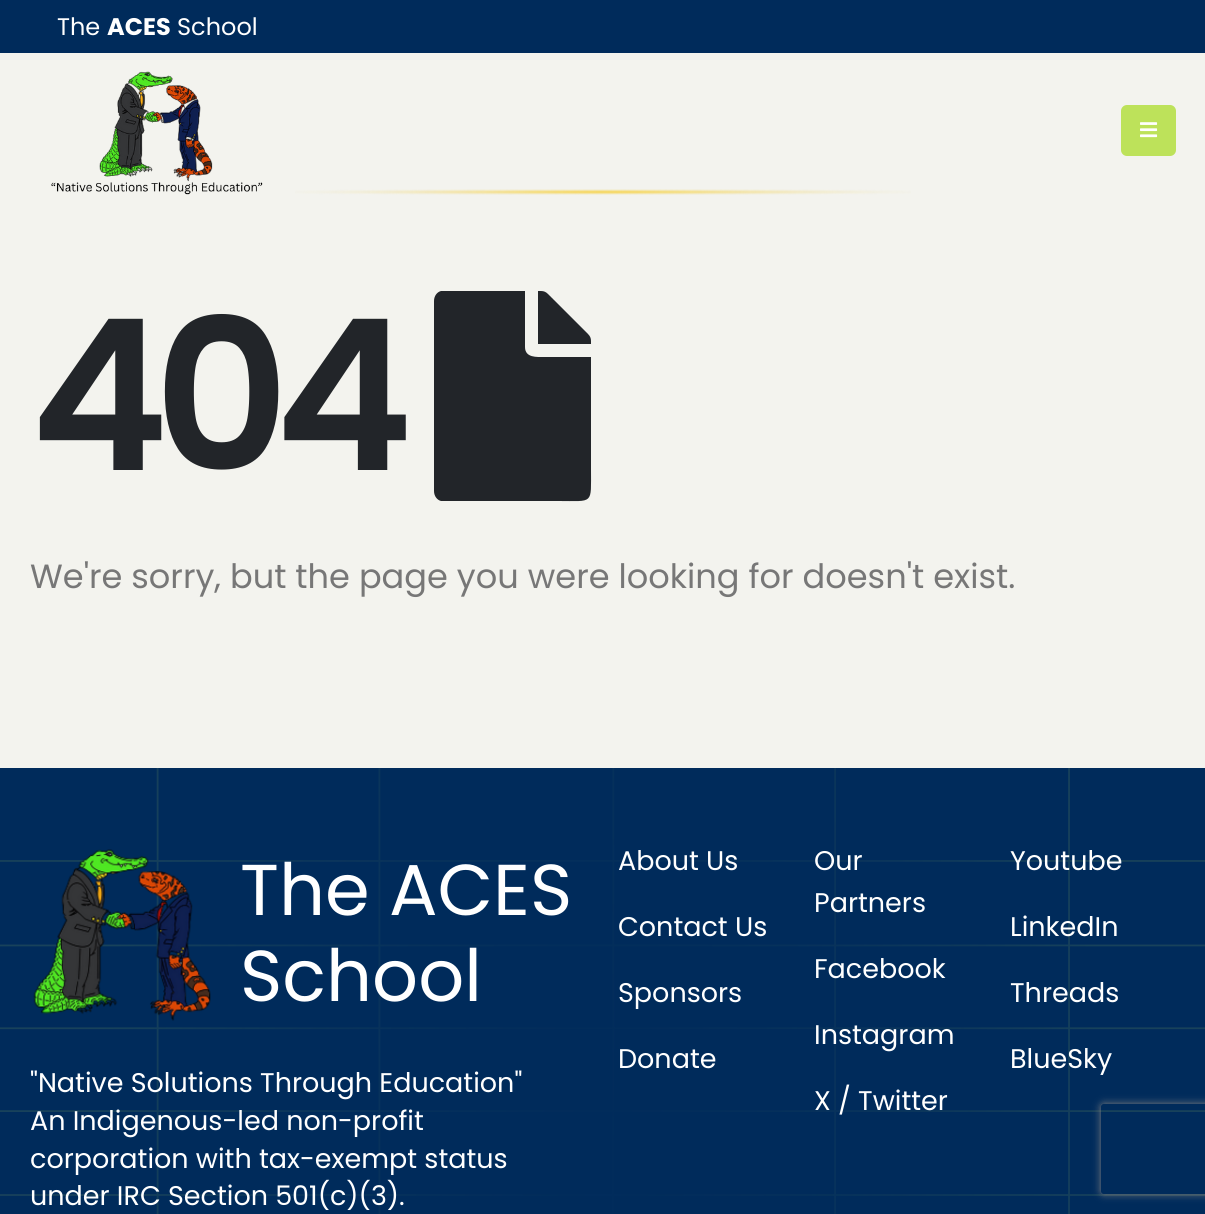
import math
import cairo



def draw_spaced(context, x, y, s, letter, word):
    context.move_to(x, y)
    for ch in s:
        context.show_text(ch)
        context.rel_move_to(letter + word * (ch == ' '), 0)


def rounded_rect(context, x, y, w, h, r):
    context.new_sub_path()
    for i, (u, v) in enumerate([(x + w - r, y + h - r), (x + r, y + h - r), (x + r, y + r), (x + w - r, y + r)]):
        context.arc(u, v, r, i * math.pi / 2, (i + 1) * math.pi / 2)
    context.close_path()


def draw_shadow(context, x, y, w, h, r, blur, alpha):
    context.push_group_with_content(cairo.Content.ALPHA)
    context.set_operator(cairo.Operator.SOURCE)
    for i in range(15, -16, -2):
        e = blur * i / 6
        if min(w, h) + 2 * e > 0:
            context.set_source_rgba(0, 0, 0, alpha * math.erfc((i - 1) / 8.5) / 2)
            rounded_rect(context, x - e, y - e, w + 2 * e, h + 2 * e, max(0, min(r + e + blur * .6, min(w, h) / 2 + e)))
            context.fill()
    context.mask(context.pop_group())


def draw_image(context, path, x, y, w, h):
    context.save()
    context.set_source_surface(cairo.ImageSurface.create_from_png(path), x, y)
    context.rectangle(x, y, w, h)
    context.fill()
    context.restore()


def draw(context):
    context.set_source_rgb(243 / 255, 243 / 255, 238 / 255)
    context.paint()
    context.set_source_rgb(0, 43 / 255, 91 / 255)
    context.rectangle(0, 0, 1205, 53)
    context.fill()
    draw_image(context, "images/1.png", 295, 189, 616, 6)
    draw_image(context, "images/2.png", 51, 71, 212, 124)
    context.set_source_rgb(189 / 255, 226 / 255, 90 / 255)
    rounded_rect(context, 1121, 105, 55, 51, 6)
    context.fill()
    draw_image(context, "images/3.png", 1140, 122, 18, 16)
    context.set_source_rgb(34 / 255, 37 / 255, 41 / 255)
    context.new_path()
    context.move_to(525, 347)
    context.line_to(525, 291)
    context.line_to(441, 291)
    context.curve_to(437, 292, 434, 296, 434, 301)
    context.line_to(434, 491)
    context.curve_to(434, 496, 437, 500, 441, 501)
    context.line_to(558, 501)
    context.curve_to(594, 501, 591, 505, 591, 469)
    context.line_to(591, 357)
    context.line_to(544, 357)
    context.curve_to(537, 357, 525, 358, 525, 347)
    context.close_path()
    context.move_to(591, 341)
    context.line_to(591, 344)
    context.line_to(538, 344)
    context.line_to(538, 291)
    context.line_to(541, 291)
    context.curve_to(544, 291, 546, 292, 548, 294)
    context.line_to(588, 334)
    context.curve_to(590, 336, 591, 338, 591, 341)
    context.close_path()
    context.fill()
    context.set_source_rgb(0, 43 / 255, 91 / 255)
    context.rectangle(0, 768, 1205, 446)
    context.fill()
    draw_image(context, "images/4.png", 0, 768, 1205, 446)
    draw_image(context, "images/5.png", 33, 849, 178, 172)
    context.save()
    context.set_fill_rule(cairo.FillRule.EVEN_ODD)
    context.new_path()
    context.move_to(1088, 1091)
    context.line_to(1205, 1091)
    context.line_to(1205, 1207)
    context.line_to(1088, 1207)
    context.close_path()
    context.move_to(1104, 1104)
    context.line_to(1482, 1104)
    context.curve_to(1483.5, 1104, 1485, 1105.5, 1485, 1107)
    context.line_to(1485, 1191)
    context.curve_to(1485, 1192.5, 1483.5, 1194, 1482, 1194)
    context.line_to(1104, 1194)
    context.curve_to(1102.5, 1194, 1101, 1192.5, 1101, 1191)
    context.line_to(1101, 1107)
    context.curve_to(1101, 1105.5, 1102.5, 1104, 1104, 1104)
    context.close_path()
    context.clip()
    context.set_source_rgb(128 / 255, 128 / 255, 128 / 255)
    draw_shadow(context, 1101, 1104, 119, 90, 3, 4, 1)
    context.restore()
    context.select_font_face("Poppins")
    context.set_font_size(24)
    context.set_source_rgb(1, 1, 1)
    context.move_to(57, 35)
    context.show_text("The")
    context.select_font_face("Poppins", cairo.FontSlant.NORMAL, cairo.FontWeight.BOLD)
    context.move_to(107, 35)
    context.show_text("ACES")
    context.select_font_face("Poppins")
    context.move_to(177, 35)
    context.show_text("School")
    context.select_font_face("Poppins SemiBold")
    context.set_font_size(210)
    context.set_source_rgb(34 / 255, 37 / 255, 41 / 255)
    draw_spaced(context, 30, 470, "404", -15, 0)
    context.select_font_face("Poppins")
    context.set_font_size(33.6)
    context.set_source_rgb(119 / 255, 119 / 255, 119 / 255)
    context.move_to(30, 588)
    context.show_text("We're sorry, but the page you were looking for doesn't exist.")
    context.set_font_size(72)
    context.set_source_rgb(1, 1, 1)
    context.move_to(240, 915)
    context.show_text("The ACES")
    context.move_to(240, 1001)
    context.show_text("School")
    context.set_font_size(27)
    context.move_to(30, 1092)
    context.show_text("\"Native Solutions Through Education\"")
    context.move_to(30, 1130)
    context.show_text("An Indigenous-led non-profit")
    context.move_to(30, 1168)
    context.show_text("corporation with tax-exempt status")
    context.move_to(30, 1205)
    context.show_text("under IRC Section 501(c)(3).")
    context.move_to(618, 870)
    context.show_text("About Us")
    context.move_to(618, 936)
    context.show_text("Contact Us")
    context.move_to(618, 1002)
    context.show_text("Sponsors")
    context.move_to(618, 1068)
    context.show_text("Donate")
    context.move_to(814, 870)
    context.show_text("Our")
    context.move_to(814, 912)
    context.show_text("Partners")
    context.move_to(814, 978)
    context.show_text("Facebook")
    context.move_to(814, 1044)
    context.show_text("Instagram")
    context.move_to(814, 1110)
    context.show_text("X / Twitter")
    context.move_to(1010, 870)
    context.show_text("Youtube")
    context.move_to(1010, 936)
    context.show_text("LinkedIn")
    context.move_to(1010, 1002)
    context.show_text("Threads")
    context.move_to(1010, 1068)
    context.show_text("BlueSky")


surface = cairo.ImageSurface(cairo.Format.RGB24, 1205, 1214)
context = cairo.Context(surface)
options = cairo.FontOptions()
options.set_hint_metrics(cairo.HintMetrics.OFF)
options.set_hint_style(cairo.HintStyle.NONE)
context.set_font_options(options)
context.set_miter_limit(4)
draw(context)
surface.write_to_png("out.png")
